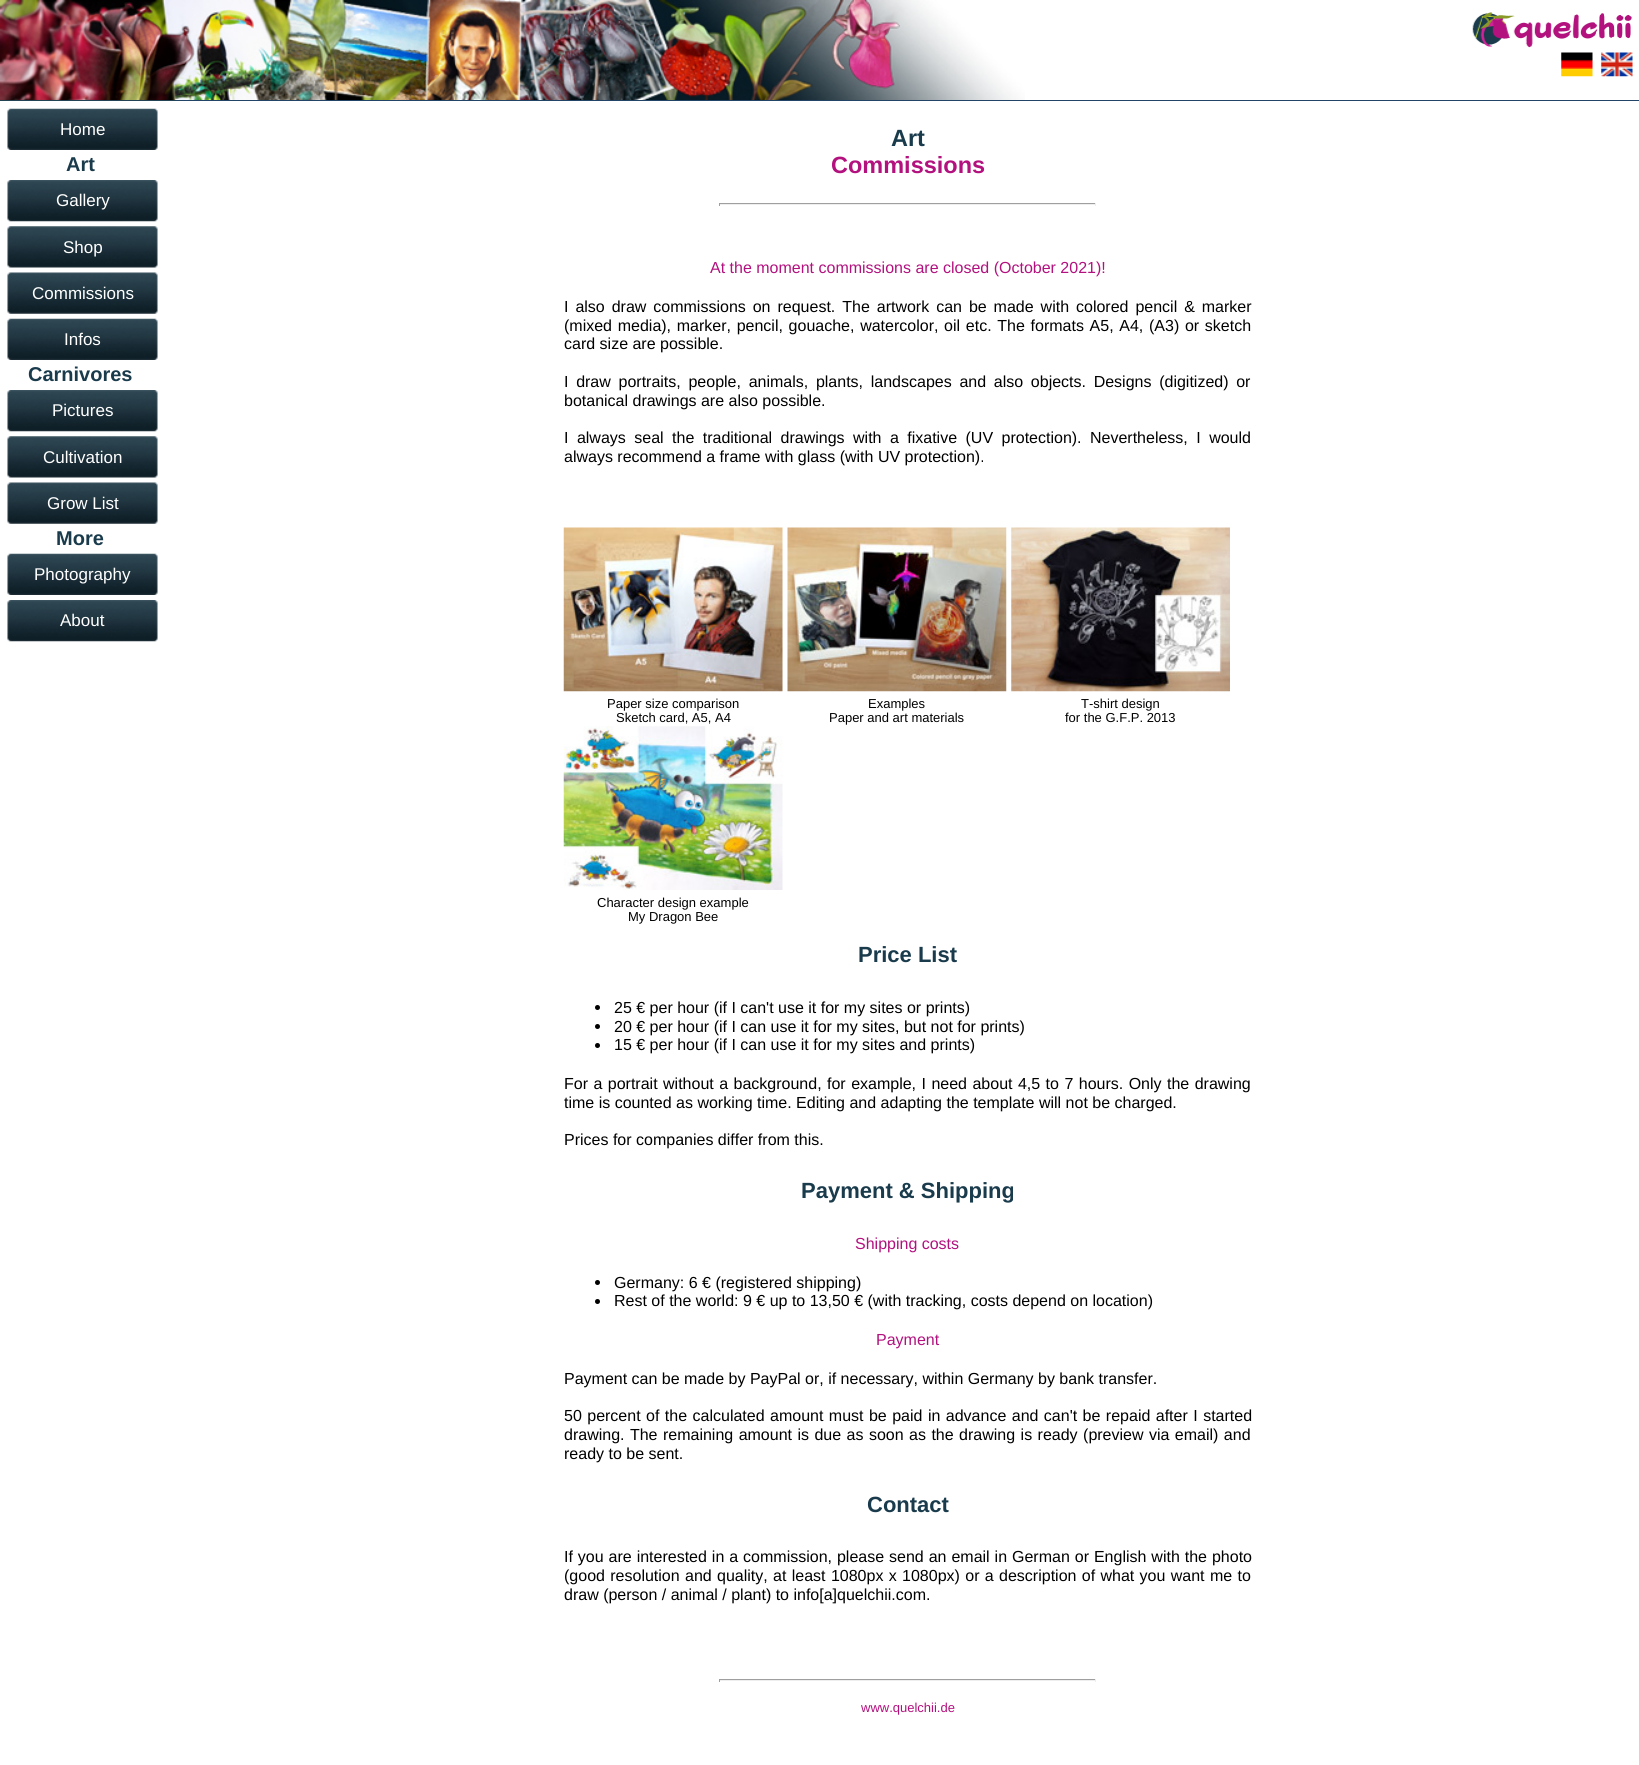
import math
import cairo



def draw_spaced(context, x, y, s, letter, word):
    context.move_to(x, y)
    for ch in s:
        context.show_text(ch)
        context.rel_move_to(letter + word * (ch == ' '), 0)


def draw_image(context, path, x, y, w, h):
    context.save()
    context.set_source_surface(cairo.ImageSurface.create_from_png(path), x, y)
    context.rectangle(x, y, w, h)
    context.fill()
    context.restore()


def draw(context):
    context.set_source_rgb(1, 1, 1)
    context.paint()
    draw_image(context, "images/1.png", 0, 0, 1025, 100)
    draw_image(context, "images/2.png", 1472, 12, 160, 36)
    draw_image(context, "images/3.png", 1561, 52, 32, 25)
    draw_image(context, "images/4.png", 1601, 52, 32, 25)
    context.set_source_rgb(34 / 255, 68 / 255, 85 / 255)
    context.rectangle(0, 100, 175, 1)
    context.fill()
    draw_image(context, "images/5.png", 7, 108, 151, 42)
    draw_image(context, "images/6.png", 7, 180, 151, 42)
    draw_image(context, "images/7.png", 7, 226, 151, 42)
    draw_image(context, "images/8.png", 7, 272, 151, 42)
    draw_image(context, "images/5.png", 7, 318, 151, 42)
    draw_image(context, "images/6.png", 7, 390, 151, 42)
    draw_image(context, "images/7.png", 7, 436, 151, 42)
    draw_image(context, "images/8.png", 7, 482, 151, 42)
    draw_image(context, "images/9.png", 7, 553, 151, 42)
    draw_image(context, "images/6.png", 7, 600, 151, 42)
    context.set_source_rgb(34 / 255, 68 / 255, 102 / 255)
    context.rectangle(175, 100, 1464, 1)
    context.fill()
    context.set_source_rgb(159 / 255, 159 / 255, 159 / 255)
    context.rectangle(719, 203, 377, 1)
    context.fill()
    context.set_source_rgb(238 / 255, 238 / 255, 238 / 255)
    context.rectangle(1095, 203, 1, 3)
    context.fill()
    context.rectangle(719, 204, 377, 1)
    context.fill()
    context.set_source_rgb(159 / 255, 159 / 255, 159 / 255)
    context.rectangle(719, 203, 1, 3)
    context.fill()
    draw_image(context, "images/10.png", 563, 527, 220, 165)
    draw_image(context, "images/11.png", 787, 527, 220, 165)
    draw_image(context, "images/12.png", 1011, 527, 219, 165)
    draw_image(context, "images/13.png", 563, 726, 220, 164)
    context.set_source_rgb(0, 0, 0)
    context.arc(597.5, 1007.5, 2.5, 0, 2 * math.pi)
    context.fill()
    context.arc(597.5, 1026.5, 2.5, 0, 2 * math.pi)
    context.fill()
    context.arc(597.5, 1045.5, 2.5, 0, 2 * math.pi)
    context.fill()
    context.arc(597.5, 1282.5, 2.5, 0, 2 * math.pi)
    context.fill()
    context.arc(597.5, 1301.5, 2.5, 0, 2 * math.pi)
    context.fill()
    context.set_source_rgb(159 / 255, 159 / 255, 159 / 255)
    context.rectangle(719, 1679, 377, 1)
    context.fill()
    context.set_source_rgb(238 / 255, 238 / 255, 238 / 255)
    context.rectangle(1095, 1679, 1, 3)
    context.fill()
    context.rectangle(719, 1680, 377, 1)
    context.fill()
    context.set_source_rgb(159 / 255, 159 / 255, 159 / 255)
    context.rectangle(719, 1679, 1, 3)
    context.fill()
    context.select_font_face("Liberation Sans")
    context.set_font_size(17)
    context.set_source_rgb(1, 1, 1)
    context.move_to(60, 135)
    context.show_text("Home")
    context.select_font_face("Liberation Sans", cairo.FontSlant.NORMAL, cairo.FontWeight.BOLD)
    context.set_font_size(20)
    context.set_source_rgb(25 / 255, 59 / 255, 76 / 255)
    context.move_to(66, 171)
    context.show_text("Art")
    context.select_font_face("Liberation Sans")
    context.set_font_size(17)
    context.set_source_rgb(1, 1, 1)
    context.move_to(56, 206)
    context.show_text("Gallery")
    context.move_to(63, 253)
    context.show_text("Shop")
    context.move_to(32, 299)
    context.show_text("Commissions")
    context.move_to(64, 345)
    context.show_text("Infos")
    context.select_font_face("Liberation Sans", cairo.FontSlant.NORMAL, cairo.FontWeight.BOLD)
    context.set_font_size(20)
    context.set_source_rgb(25 / 255, 59 / 255, 76 / 255)
    context.move_to(28, 381)
    context.show_text("Carnivores")
    context.select_font_face("Liberation Sans")
    context.set_font_size(17)
    context.set_source_rgb(1, 1, 1)
    context.move_to(52, 416)
    context.show_text("Pictures")
    context.move_to(43, 463)
    context.show_text("Cultivation")
    context.move_to(47, 509)
    context.show_text("Grow List")
    context.select_font_face("Liberation Sans", cairo.FontSlant.NORMAL, cairo.FontWeight.BOLD)
    context.set_font_size(20)
    context.set_source_rgb(25 / 255, 59 / 255, 76 / 255)
    context.move_to(56, 545)
    context.show_text("More")
    context.select_font_face("Liberation Sans")
    context.set_font_size(17)
    context.set_source_rgb(1, 1, 1)
    context.move_to(34, 580)
    context.show_text("Photography")
    context.move_to(60, 626)
    context.show_text("About")
    context.select_font_face("Liberation Sans", cairo.FontSlant.NORMAL, cairo.FontWeight.BOLD)
    context.set_font_size(23.5)
    context.set_source_rgb(25 / 255, 59 / 255, 76 / 255)
    context.move_to(891, 146)
    context.show_text("Art")
    context.set_source_rgb(178 / 255, 17 / 255, 126 / 255)
    context.move_to(831, 173)
    context.show_text("Commissions")
    context.select_font_face("Liberation Sans")
    context.set_font_size(16)
    context.move_to(710, 273)
    context.show_text("At the moment commissions are closed (October 2021)!")
    context.set_source_rgb(0, 0, 0)
    draw_spaced(context, 564, 312, "I also draw commissions on request. The artwork can be made with colored pencil & marker", 0, 2.5)
    draw_spaced(context, 564, 331, "(mixed media), marker, pencil, gouache, watercolor, oil etc. The formats A5, A4, (A3) or sketch", 0, 1.25)
    context.move_to(564, 349)
    context.show_text("card size are possible.")
    draw_spaced(context, 564, 387, "I draw portraits, people, animals, plants, landscapes and also objects. Designs (digitized) or", 0, 3.25)
    context.move_to(564, 406)
    context.show_text("botanical drawings are also possible.")
    draw_spaced(context, 564, 443, "I always seal the traditional drawings with a fixative (UV protection). Nevertheless, I would", 0, 4)
    context.move_to(564, 462)
    context.show_text("always recommend a frame with glass (with UV protection).")
    context.set_font_size(13)
    context.move_to(607, 708)
    context.show_text("Paper size comparison")
    context.move_to(616, 722)
    context.show_text("Sketch card, A5, A4")
    context.move_to(868, 708)
    context.show_text("Examples")
    context.move_to(829, 722)
    context.show_text("Paper and art materials")
    context.move_to(1081, 708)
    context.show_text("T-shirt design")
    context.move_to(1065, 722)
    context.show_text("for the G.F.P. 2013")
    context.move_to(597, 907)
    context.show_text("Character design example")
    context.move_to(628, 921)
    context.show_text("My Dragon Bee")
    context.select_font_face("Liberation Sans", cairo.FontSlant.NORMAL, cairo.FontWeight.BOLD)
    context.set_font_size(22)
    context.set_source_rgb(25 / 255, 59 / 255, 76 / 255)
    context.move_to(858, 962)
    context.show_text("Price List")
    context.select_font_face("Liberation Sans")
    context.set_font_size(16)
    context.set_source_rgb(0, 0, 0)
    context.move_to(614, 1013)
    context.show_text("25 € per hour (if I can't use it for my sites or prints)")
    context.move_to(614, 1032)
    context.show_text("20 € per hour (if I can use it for my sites, but not for prints)")
    context.move_to(614, 1050)
    context.show_text("15 € per hour (if I can use it for my sites and prints)")
    draw_spaced(context, 564, 1089, "For a portrait without a background, for example, I need about 4,5 to 7 hours. Only the drawing", 0, 1)
    context.move_to(564, 1108)
    context.show_text("time is counted as working time. Editing and adapting the template will not be charged.")
    context.move_to(564, 1145)
    context.show_text("Prices for companies differ from this.")
    context.select_font_face("Liberation Sans", cairo.FontSlant.NORMAL, cairo.FontWeight.BOLD)
    context.set_font_size(22)
    context.set_source_rgb(25 / 255, 59 / 255, 76 / 255)
    context.move_to(801, 1198)
    context.show_text("Payment & Shipping")
    context.select_font_face("Liberation Sans")
    context.set_font_size(16)
    context.set_source_rgb(178 / 255, 17 / 255, 126 / 255)
    context.move_to(855, 1249)
    context.show_text("Shipping costs")
    context.set_source_rgb(0, 0, 0)
    context.move_to(614, 1288)
    context.show_text("Germany: 6 € (registered shipping)")
    context.move_to(614, 1306)
    context.show_text("Rest of the world: 9 € up to 13,50 € (with tracking, costs depend on location)")
    context.set_source_rgb(178 / 255, 17 / 255, 126 / 255)
    context.move_to(876, 1345)
    context.show_text("Payment")
    context.set_source_rgb(0, 0, 0)
    context.move_to(564, 1384)
    context.show_text("Payment can be made by PayPal or, if necessary, within Germany by bank transfer.")
    draw_spaced(context, 564, 1421, "50 percent of the calculated amount must be paid in advance and can't be repaid after I started", 0, 1)
    draw_spaced(context, 564, 1440, "drawing. The remaining amount is due as soon as the drawing is ready (preview via email) and", 0, 1)
    context.move_to(564, 1459)
    context.show_text("ready to be sent.")
    context.select_font_face("Liberation Sans", cairo.FontSlant.NORMAL, cairo.FontWeight.BOLD)
    context.set_font_size(22)
    context.set_source_rgb(25 / 255, 59 / 255, 76 / 255)
    context.move_to(867, 1512)
    context.show_text("Contact")
    context.select_font_face("Liberation Sans")
    context.set_font_size(16)
    context.set_source_rgb(0, 0, 0)
    draw_spaced(context, 564, 1562, "If you are interested in a commission, please send an email in German or English with the photo", 0, 0.5)
    draw_spaced(context, 564, 1581, "(good resolution and quality, at least 1080px x 1080px) or a description of what you want me to", 0, 0.9)
    context.move_to(564, 1600)
    context.show_text("draw (person / animal / plant) to info[a]quelchii.com.")
    context.set_font_size(13)
    context.set_source_rgb(178 / 255, 17 / 255, 126 / 255)
    context.move_to(861, 1712)
    context.show_text("www.quelchii.de")


surface = cairo.ImageSurface(cairo.Format.RGB24, 1639, 1765)
context = cairo.Context(surface)
options = cairo.FontOptions()
options.set_hint_metrics(cairo.HintMetrics.OFF)
options.set_hint_style(cairo.HintStyle.NONE)
context.set_font_options(options)
context.set_miter_limit(4)
draw(context)
surface.write_to_png("out.png")
